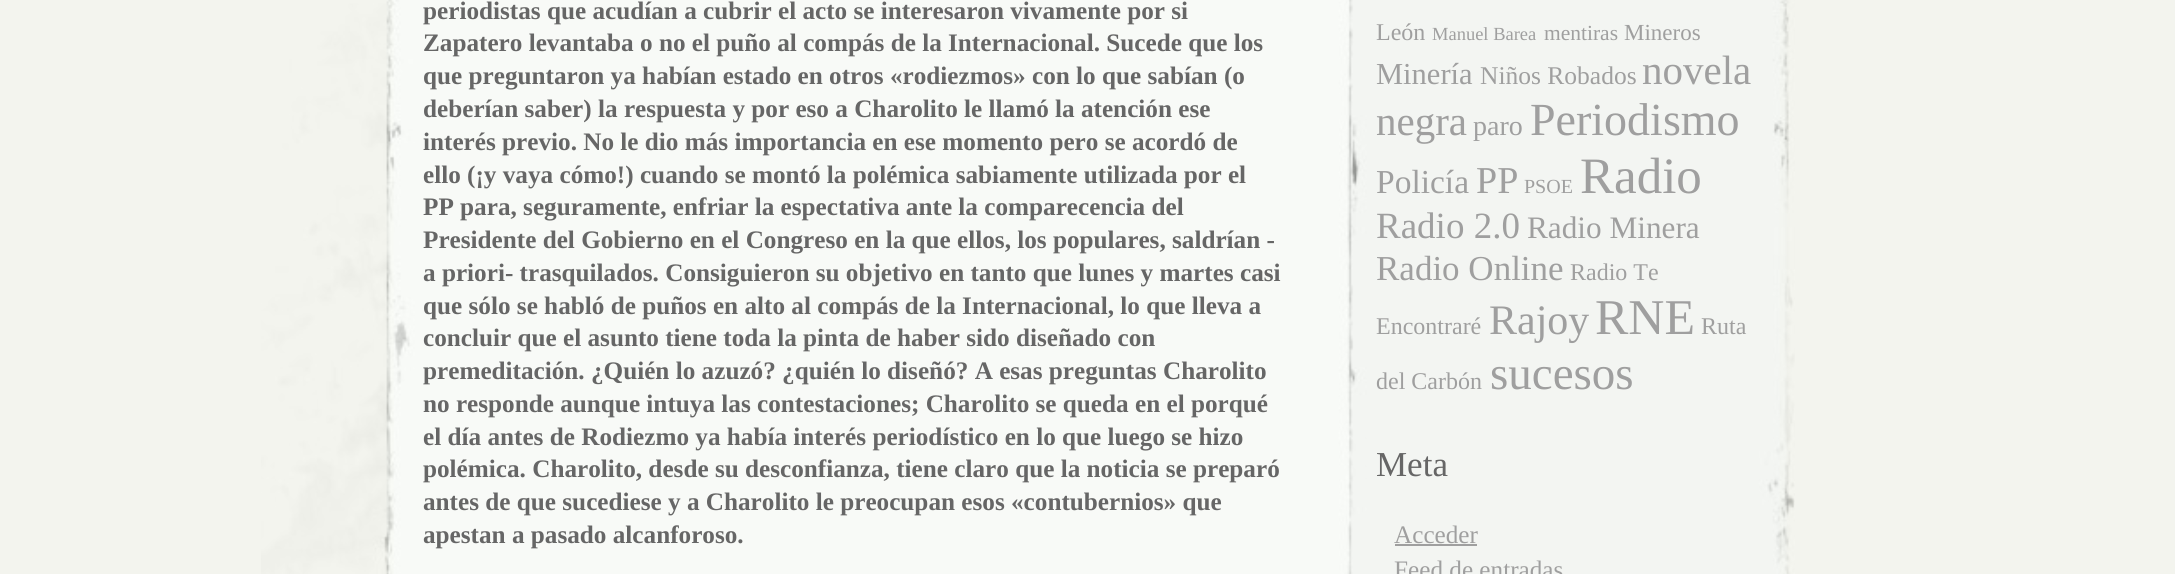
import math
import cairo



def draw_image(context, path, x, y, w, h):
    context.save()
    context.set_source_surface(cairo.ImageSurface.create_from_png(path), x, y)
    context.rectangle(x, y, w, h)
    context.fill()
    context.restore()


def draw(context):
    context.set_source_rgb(243 / 255, 244 / 255, 238 / 255)
    context.paint()
    draw_image(context, "images/1.png", 261, 0, 1534, 574)
    context.set_source_rgb(159 / 255, 159 / 255, 159 / 255)
    context.rectangle(1395, 544, 82, 2)
    context.fill()
    context.select_font_face("Liberation Serif", cairo.FontSlant.NORMAL, cairo.FontWeight.BOLD)
    context.set_font_size(25.2)
    context.set_source_rgb(102 / 255, 102 / 255, 102 / 255)
    context.move_to(423, 19)
    context.show_text("periodistas que acudían a cubrir el acto se interesaron vivamente por si")
    context.move_to(423, 51)
    context.show_text("Zapatero levantaba o no el puño al compás de la Internacional. Sucede que los")
    context.move_to(423, 84)
    context.show_text("que preguntaron ya habían estado en otros «rodiezmos» con lo que sabían (o")
    context.move_to(423, 117)
    context.show_text("deberían saber) la respuesta y por eso a Charolito le llamó la atención ese")
    context.move_to(423, 150)
    context.show_text("interés previo. No le dio más importancia en ese momento pero se acordó de")
    context.move_to(423, 183)
    context.show_text("ello (¡y vaya cómo!) cuando se montó la polémica sabiamente utilizada por el")
    context.move_to(423, 215)
    context.show_text("PP para, seguramente, enfriar la espectativa ante la comparecencia del")
    context.move_to(423, 248)
    context.show_text("Presidente del Gobierno en el Congreso en la que ellos, los populares, saldrían -")
    context.move_to(423, 281)
    context.show_text("a priori- trasquilados. Consiguieron su objetivo en tanto que lunes y martes casi")
    context.move_to(423, 314)
    context.show_text("que sólo se habló de puños en alto al compás de la Internacional, lo que lleva a")
    context.move_to(423, 346)
    context.show_text("concluir que el asunto tiene toda la pinta de haber sido diseñado con")
    context.move_to(423, 379)
    context.show_text("premeditación. ¿Quién lo azuzó? ¿quién lo diseñó? A esas preguntas Charolito")
    context.move_to(423, 412)
    context.show_text("no responde aunque intuya las contestaciones; Charolito se queda en el porqué")
    context.move_to(423, 445)
    context.show_text("el día antes de Rodiezmo ya había interés periodístico en lo que luego se hizo")
    context.move_to(423, 477)
    context.show_text("polémica. Charolito, desde su desconfianza, tiene claro que la noticia se preparó")
    context.move_to(423, 510)
    context.show_text("antes de que sucediese y a Charolito le preocupan esos «contubernios» que")
    context.move_to(423, 543)
    context.show_text("apestan a pasado alcanforoso.")
    context.select_font_face("Liberation Serif")
    context.set_font_size(24)
    context.set_source_rgb(159 / 255, 159 / 255, 159 / 255)
    context.move_to(1376, 40)
    context.show_text("León")
    context.set_font_size(18.5)
    context.move_to(1432, 40)
    context.show_text("Manuel Barea")
    context.set_font_size(21.5)
    context.move_to(1544, 40)
    context.show_text("mentiras")
    context.set_font_size(23)
    context.move_to(1624, 40)
    context.show_text("Mineros")
    context.set_font_size(30.5)
    context.move_to(1376, 84)
    context.show_text("Minería")
    context.set_font_size(25.5)
    context.move_to(1480, 84)
    context.show_text("Niños Robados")
    context.set_font_size(41)
    context.move_to(1642, 84)
    context.show_text("novela")
    context.move_to(1376, 135)
    context.show_text("negra")
    context.set_font_size(28)
    context.move_to(1473, 135)
    context.show_text("paro")
    context.set_font_size(46)
    context.move_to(1530, 135)
    context.show_text("Periodismo")
    context.set_font_size(33.5)
    context.move_to(1376, 193)
    context.show_text("Policía")
    context.set_font_size(38)
    context.move_to(1476, 193)
    context.show_text("PP")
    context.set_font_size(20)
    context.move_to(1524, 193)
    context.show_text("PSOE")
    context.set_font_size(51)
    context.move_to(1580, 193)
    context.show_text("Radio")
    context.set_font_size(37)
    context.move_to(1376, 238)
    context.show_text("Radio 2.0")
    context.set_font_size(31.25)
    context.move_to(1527, 238)
    context.show_text("Radio Minera")
    context.set_font_size(35)
    context.move_to(1376, 280)
    context.show_text("Radio Online")
    context.set_font_size(24)
    context.move_to(1570, 280)
    context.show_text("Radio Te")
    context.move_to(1376, 334)
    context.show_text("Encontraré")
    context.set_font_size(42)
    context.move_to(1489, 334)
    context.show_text("Rajoy")
    context.set_font_size(50)
    context.move_to(1595, 334)
    context.show_text("RNE")
    context.set_font_size(24)
    context.move_to(1701, 334)
    context.show_text("Ruta")
    context.move_to(1376, 389)
    context.show_text("del Carbón")
    context.set_font_size(47)
    context.move_to(1490, 389)
    context.show_text("sucesos")
    context.set_font_size(35)
    context.set_source_rgb(102 / 255, 102 / 255, 102 / 255)
    context.move_to(1376, 476)
    context.show_text("Meta")
    context.set_font_size(25.2)
    context.set_source_rgb(159 / 255, 159 / 255, 159 / 255)
    context.move_to(1394, 543)
    context.show_text("Acceder")
    context.move_to(1394, 578)
    context.show_text("Feed de entradas")


surface = cairo.ImageSurface(cairo.Format.RGB24, 2175, 574)
context = cairo.Context(surface)
options = cairo.FontOptions()
options.set_hint_metrics(cairo.HintMetrics.OFF)
options.set_hint_style(cairo.HintStyle.NONE)
context.set_font_options(options)
context.set_miter_limit(4)
draw(context)
surface.write_to_png("out.png")
